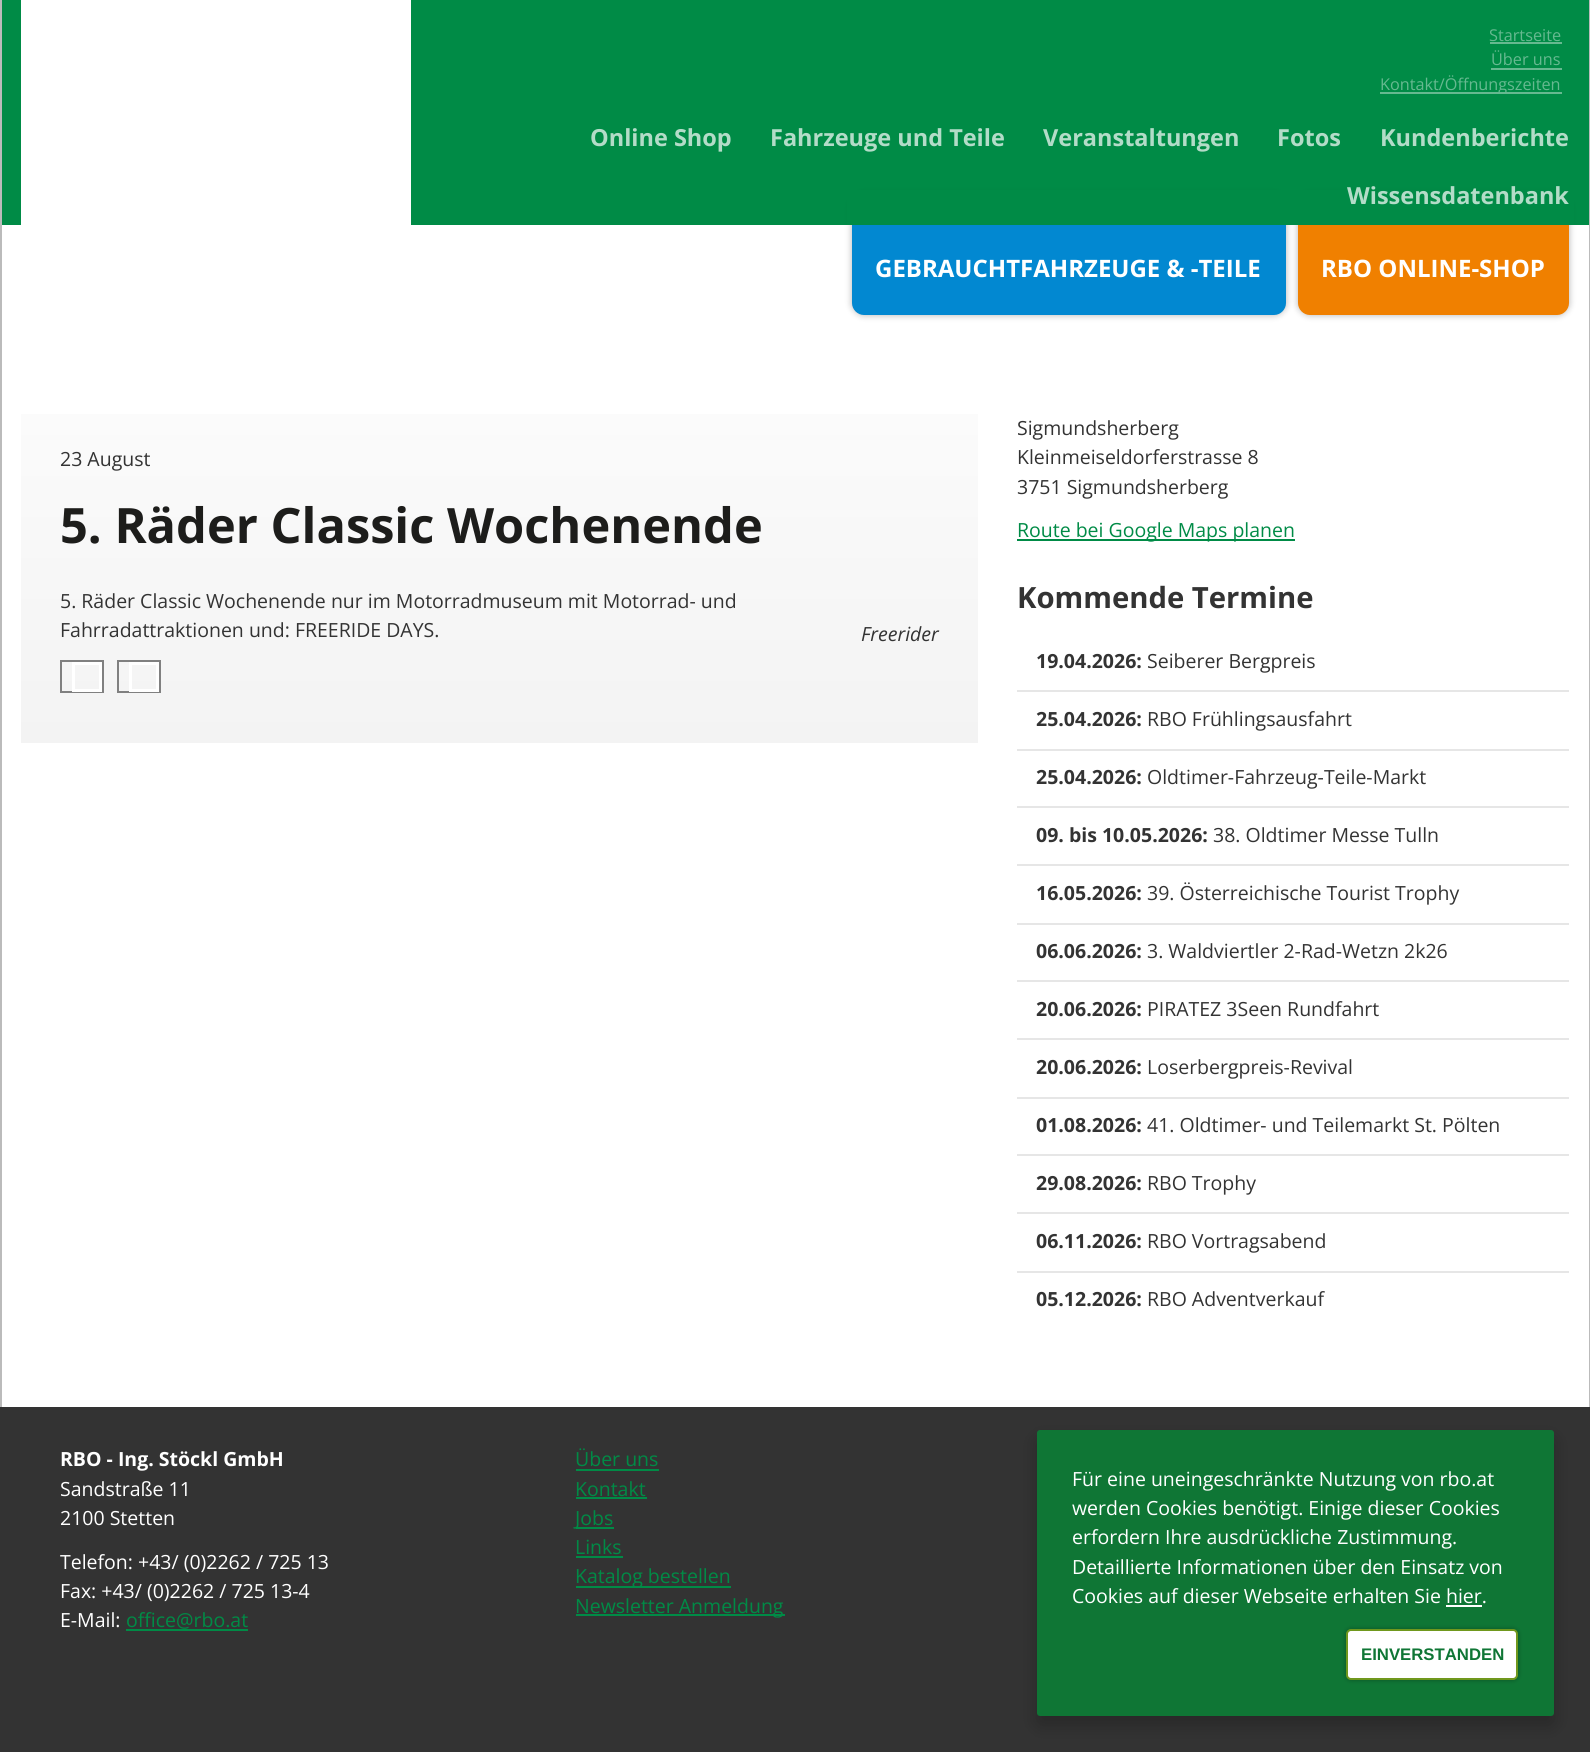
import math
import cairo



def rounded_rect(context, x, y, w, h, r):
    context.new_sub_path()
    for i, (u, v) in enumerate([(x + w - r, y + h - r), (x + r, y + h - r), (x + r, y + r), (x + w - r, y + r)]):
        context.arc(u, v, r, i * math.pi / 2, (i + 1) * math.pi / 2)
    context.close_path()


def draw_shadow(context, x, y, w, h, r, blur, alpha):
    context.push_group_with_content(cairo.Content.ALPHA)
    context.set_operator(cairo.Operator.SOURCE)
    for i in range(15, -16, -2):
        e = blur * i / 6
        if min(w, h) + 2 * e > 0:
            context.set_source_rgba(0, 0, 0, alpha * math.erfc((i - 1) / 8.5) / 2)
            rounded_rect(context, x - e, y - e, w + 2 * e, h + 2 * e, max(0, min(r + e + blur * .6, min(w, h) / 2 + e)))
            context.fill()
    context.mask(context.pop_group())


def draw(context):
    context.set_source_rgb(51 / 255, 51 / 255, 51 / 255)
    context.paint()
    context.set_source_rgb(1, 1, 1)
    context.rectangle(2, 225, 1587, 1182)
    context.fill()
    context.set_source_rgb(187 / 255, 187 / 255, 187 / 255)
    context.rectangle(1589, 0, 1, 1407)
    context.fill()
    context.rectangle(0, 0, 2, 1407)
    context.fill()
    context.set_source_rgb(0, 139 / 255, 70 / 255)
    context.rectangle(2, 0, 1587, 225)
    context.fill()
    context.set_source_rgb(1, 1, 1)
    context.rectangle(21, 0, 390, 225)
    context.fill()
    context.set_source_rgb(102 / 255, 185 / 255, 144 / 255)
    context.rectangle(1490, 42, 72, 2)
    context.fill()
    context.rectangle(1491, 68, 71, 2)
    context.fill()
    context.rectangle(1380, 92, 182, 2)
    context.fill()
    context.set_source_rgb(0, 0, 0)
    draw_shadow(context, 852, 195, 434, 120, 12, 3.5, 0.3)
    context.set_source_rgb(2 / 255, 136 / 255, 209 / 255)
    context.new_path()
    context.move_to(852, 195)
    context.line_to(1286, 195)
    context.line_to(1286, 303)
    context.curve_to(1286, 309.5, 1280.5, 315, 1274, 315)
    context.line_to(864, 315)
    context.curve_to(857.5, 315, 852, 309.5, 852, 303)
    context.close_path()
    context.fill()
    context.set_source_rgb(0, 0, 0)
    draw_shadow(context, 1298, 195, 271, 120, 12, 3.5, 0.3)
    context.set_source_rgb(240 / 255, 128 / 255, 0)
    context.new_path()
    context.move_to(1298, 195)
    context.line_to(1569, 195)
    context.line_to(1569, 303)
    context.curve_to(1569, 309.5, 1563.5, 315, 1557, 315)
    context.line_to(1310, 315)
    context.curve_to(1303.5, 315, 1298, 309.5, 1298, 303)
    context.close_path()
    context.fill()
    context.set_source_rgb(0, 139 / 255, 70 / 255)
    context.rectangle(847, 190, 727, 35)
    context.fill()
    gradient = cairo.LinearGradient(500, 414, 500, 743)
    gradient.add_color_stop_rgba(0, 251 / 255, 251 / 255, 251 / 255, 1)
    gradient.add_color_stop_rgba(1, 243 / 255, 243 / 255, 243 / 255, 1)
    context.set_source(gradient)
    context.rectangle(21, 414, 957, 329)
    context.fill()
    context.rectangle(61, 661, 42, 31)
    context.set_source_rgb(128 / 255, 128 / 255, 128 / 255)
    context.stroke()
    context.rectangle(73.5, 663.5, 27, 27)
    context.set_source_rgb(1, 1, 1)
    context.set_line_width(3)
    context.stroke()
    context.rectangle(118, 661, 42, 31)
    context.set_source_rgb(128 / 255, 128 / 255, 128 / 255)
    context.set_line_width(2)
    context.stroke()
    context.rectangle(130.5, 663.5, 27, 27)
    context.set_source_rgb(1, 1, 1)
    context.set_line_width(3)
    context.stroke()
    context.set_source_rgb(0, 139 / 255, 70 / 255)
    context.rectangle(1017, 539, 278, 2)
    context.fill()
    context.set_source_rgb(230 / 255, 230 / 255, 230 / 255)
    context.rectangle(1017, 690, 552, 2)
    context.fill()
    context.rectangle(1017, 749, 552, 2)
    context.fill()
    context.rectangle(1017, 806, 552, 2)
    context.fill()
    context.rectangle(1017, 864, 552, 2)
    context.fill()
    context.rectangle(1017, 923, 552, 2)
    context.fill()
    context.rectangle(1017, 980, 552, 2)
    context.fill()
    context.rectangle(1017, 1038, 552, 2)
    context.fill()
    context.rectangle(1017, 1097, 552, 2)
    context.fill()
    context.rectangle(1017, 1154, 552, 2)
    context.fill()
    context.rectangle(1017, 1212, 552, 2)
    context.fill()
    context.rectangle(1017, 1271, 552, 2)
    context.fill()
    context.set_source_rgb(0, 139 / 255, 70 / 255)
    context.rectangle(126, 1629, 122, 2)
    context.fill()
    context.rectangle(576, 1469, 83, 2)
    context.fill()
    context.rectangle(576, 1497, 71, 2)
    context.fill()
    context.rectangle(576, 1527, 38, 2)
    context.fill()
    context.rectangle(576, 1556, 47, 2)
    context.fill()
    context.rectangle(576, 1586, 155, 2)
    context.fill()
    context.rectangle(576, 1614, 209, 2)
    context.fill()
    context.set_source_rgb(0, 0, 0)
    draw_shadow(context, 1037, 1439, 517, 286, 3, 9, 0.23)
    context.set_source_rgb(15 / 255, 118 / 255, 53 / 255)
    rounded_rect(context, 1037, 1430, 517, 286, 3)
    context.fill()
    context.set_source_rgb(1, 1, 1)
    context.rectangle(1446, 1605, 36, 2)
    context.fill()
    context.set_source_rgb(0, 0, 0)
    draw_shadow(context, 1346, 1629, 172, 51, 5, 2.5, 0.3)
    context.set_source_rgb(1, 1, 1)
    rounded_rect(context, 1347, 1630, 170, 49, 4)
    context.fill_preserve()
    context.set_source_rgb(112 / 255, 152 / 255, 29 / 255)
    context.set_line_width(2)
    context.stroke()
    context.select_font_face("Open Sans")
    context.set_font_size(16.25)
    context.set_source_rgb(102 / 255, 185 / 255, 144 / 255)
    context.move_to(1489, 41)
    context.show_text("Startseite")
    context.move_to(1491, 65)
    context.show_text("Über uns")
    context.move_to(1380, 90)
    context.show_text("Kontakt/Öffnungszeiten")
    context.select_font_face("Open Sans", cairo.FontSlant.NORMAL, cairo.FontWeight.BOLD)
    context.set_font_size(23.5)
    context.set_source_rgb(179 / 255, 220 / 255, 200 / 255)
    context.move_to(590, 146)
    context.show_text("Online Shop")
    context.move_to(770, 146)
    context.show_text("Fahrzeuge und Teile")
    context.move_to(1043, 146)
    context.show_text("Veranstaltungen")
    context.move_to(1277, 146)
    context.show_text("Fotos")
    context.move_to(1380, 146)
    context.show_text("Kundenberichte")
    context.move_to(1347, 204)
    context.show_text("Wissensdatenbank")
    context.set_font_size(24)
    context.set_source_rgb(1, 1, 1)
    context.move_to(875, 277)
    context.show_text("GEBRAUCHTFAHRZEUGE & -TEILE")
    context.move_to(1321, 277)
    context.show_text("RBO ONLINE-SHOP")
    context.select_font_face("Open Sans")
    context.set_font_size(19.5)
    context.set_source_rgb(51 / 255, 51 / 255, 51 / 255)
    context.move_to(60, 466)
    context.show_text("23 August")
    context.select_font_face("Open Sans", cairo.FontSlant.NORMAL, cairo.FontWeight.BOLD)
    context.set_font_size(48.75)
    context.set_source_rgb(29 / 255, 29 / 255, 27 / 255)
    context.move_to(60, 543)
    context.show_text("5. Räder Classic Wochenende")
    context.select_font_face("Open Sans")
    context.set_font_size(19.5)
    context.set_source_rgb(51 / 255, 51 / 255, 51 / 255)
    context.move_to(60, 608)
    context.show_text("5. Räder Classic Wochenende nur im Motorradmuseum mit Motorrad- und")
    context.move_to(60, 637)
    context.show_text("Fahrradattraktionen und: FREERIDE DAYS.")
    context.select_font_face("Open Sans", cairo.FontSlant.ITALIC)
    context.move_to(861, 641)
    context.show_text("Freerider")
    context.select_font_face("Open Sans")
    context.move_to(1017, 435)
    context.show_text("Sigmundsherberg")
    context.move_to(1017, 464)
    context.show_text("Kleinmeiseldorferstrasse 8")
    context.move_to(1017, 494)
    context.show_text("3751 Sigmundsherberg")
    context.set_source_rgb(0, 139 / 255, 70 / 255)
    context.move_to(1017, 537)
    context.show_text("Route bei Google Maps planen")
    context.select_font_face("Open Sans", cairo.FontSlant.NORMAL, cairo.FontWeight.BOLD)
    context.set_font_size(29.25)
    context.set_source_rgb(51 / 255, 51 / 255, 51 / 255)
    context.move_to(1017, 608)
    context.show_text("Kommende Termine")
    context.set_font_size(19.5)
    context.move_to(1036, 668)
    context.show_text("19.04.2026:")
    context.select_font_face("Open Sans")
    context.move_to(1147, 668)
    context.show_text("Seiberer Bergpreis")
    context.select_font_face("Open Sans", cairo.FontSlant.NORMAL, cairo.FontWeight.BOLD)
    context.move_to(1036, 726)
    context.show_text("25.04.2026:")
    context.select_font_face("Open Sans")
    context.move_to(1147, 726)
    context.show_text("RBO Frühlingsausfahrt")
    context.select_font_face("Open Sans", cairo.FontSlant.NORMAL, cairo.FontWeight.BOLD)
    context.move_to(1036, 784)
    context.show_text("25.04.2026:")
    context.select_font_face("Open Sans")
    context.move_to(1147, 784)
    context.show_text("Oldtimer-Fahrzeug-Teile-Markt")
    context.select_font_face("Open Sans", cairo.FontSlant.NORMAL, cairo.FontWeight.BOLD)
    context.move_to(1036, 842)
    context.show_text("09. bis 10.05.2026:")
    context.select_font_face("Open Sans")
    context.move_to(1213, 842)
    context.show_text("38. Oldtimer Messe Tulln")
    context.select_font_face("Open Sans", cairo.FontSlant.NORMAL, cairo.FontWeight.BOLD)
    context.move_to(1036, 900)
    context.show_text("16.05.2026:")
    context.select_font_face("Open Sans")
    context.move_to(1147, 900)
    context.show_text("39. Österreichische Tourist Trophy")
    context.select_font_face("Open Sans", cairo.FontSlant.NORMAL, cairo.FontWeight.BOLD)
    context.move_to(1036, 958)
    context.show_text("06.06.2026:")
    context.select_font_face("Open Sans")
    context.move_to(1147, 958)
    context.show_text("3. Waldviertler 2-Rad-Wetzn 2k26")
    context.select_font_face("Open Sans", cairo.FontSlant.NORMAL, cairo.FontWeight.BOLD)
    context.move_to(1036, 1016)
    context.show_text("20.06.2026:")
    context.select_font_face("Open Sans")
    context.move_to(1147, 1016)
    context.show_text("PIRATEZ 3Seen Rundfahrt")
    context.select_font_face("Open Sans", cairo.FontSlant.NORMAL, cairo.FontWeight.BOLD)
    context.move_to(1036, 1074)
    context.show_text("20.06.2026:")
    context.select_font_face("Open Sans")
    context.move_to(1147, 1074)
    context.show_text("Loserbergpreis-Revival")
    context.select_font_face("Open Sans", cairo.FontSlant.NORMAL, cairo.FontWeight.BOLD)
    context.move_to(1036, 1132)
    context.show_text("01.08.2026:")
    context.select_font_face("Open Sans")
    context.move_to(1147, 1132)
    context.show_text("41. Oldtimer- und Teilemarkt St. Pölten")
    context.select_font_face("Open Sans", cairo.FontSlant.NORMAL, cairo.FontWeight.BOLD)
    context.move_to(1036, 1190)
    context.show_text("29.08.2026:")
    context.select_font_face("Open Sans")
    context.move_to(1147, 1190)
    context.show_text("RBO Trophy")
    context.select_font_face("Open Sans", cairo.FontSlant.NORMAL, cairo.FontWeight.BOLD)
    context.move_to(1036, 1248)
    context.show_text("06.11.2026:")
    context.select_font_face("Open Sans")
    context.move_to(1147, 1248)
    context.show_text("RBO Vortragsabend")
    context.select_font_face("Open Sans", cairo.FontSlant.NORMAL, cairo.FontWeight.BOLD)
    context.move_to(1036, 1306)
    context.show_text("05.12.2026:")
    context.select_font_face("Open Sans")
    context.move_to(1147, 1306)
    context.show_text("RBO Adventverkauf")
    context.select_font_face("Open Sans", cairo.FontSlant.NORMAL, cairo.FontWeight.BOLD)
    context.set_source_rgb(1, 1, 1)
    context.move_to(60, 1466)
    context.show_text("RBO - Ing. Stöckl GmbH")
    context.select_font_face("Open Sans")
    context.move_to(60, 1496)
    context.show_text("Sandstraße 11")
    context.move_to(60, 1525)
    context.show_text("2100 Stetten")
    context.move_to(60, 1569)
    context.show_text("Telefon: +43/ (0)2262 / 725 13")
    context.move_to(60, 1598)
    context.show_text("Fax: +43/ (0)2262 / 725 13-4")
    context.move_to(60, 1627)
    context.show_text("E-Mail:")
    context.set_source_rgb(0, 139 / 255, 70 / 255)
    context.move_to(126, 1627)
    context.show_text("office@rbo.at")
    context.move_to(575, 1466)
    context.show_text("Über uns")
    context.move_to(575, 1496)
    context.show_text("Kontakt")
    context.move_to(575, 1525)
    context.show_text("Jobs")
    context.move_to(575, 1554)
    context.show_text("Links")
    context.move_to(575, 1583)
    context.show_text("Katalog bestellen")
    context.move_to(575, 1613)
    context.show_text("Newsletter Anmeldung")
    context.set_source_rgb(1, 1, 1)
    context.move_to(1072, 1486)
    context.show_text("Für eine uneingeschränkte Nutzung von rbo.at")
    context.move_to(1072, 1515)
    context.show_text("werden Cookies benötigt. Einige dieser Cookies")
    context.move_to(1072, 1544)
    context.show_text("erfordern Ihre ausdrückliche Zustimmung.")
    context.move_to(1072, 1574)
    context.show_text("Detaillierte Informationen über den Einsatz von")
    context.move_to(1072, 1603)
    context.show_text("Cookies auf dieser Webseite erhalten Sie hier.")
    context.select_font_face("Liberation Sans", cairo.FontSlant.NORMAL, cairo.FontWeight.BOLD)
    context.set_font_size(16.75)
    context.set_source_rgb(15 / 255, 118 / 255, 53 / 255)
    context.move_to(1361, 1660)
    context.show_text("EINVERSTANDEN")


surface = cairo.ImageSurface(cairo.Format.RGB24, 1590, 1752)
context = cairo.Context(surface)
options = cairo.FontOptions()
options.set_hint_metrics(cairo.HintMetrics.OFF)
options.set_hint_style(cairo.HintStyle.NONE)
context.set_font_options(options)
context.set_miter_limit(4)
draw(context)
surface.write_to_png("out.png")
